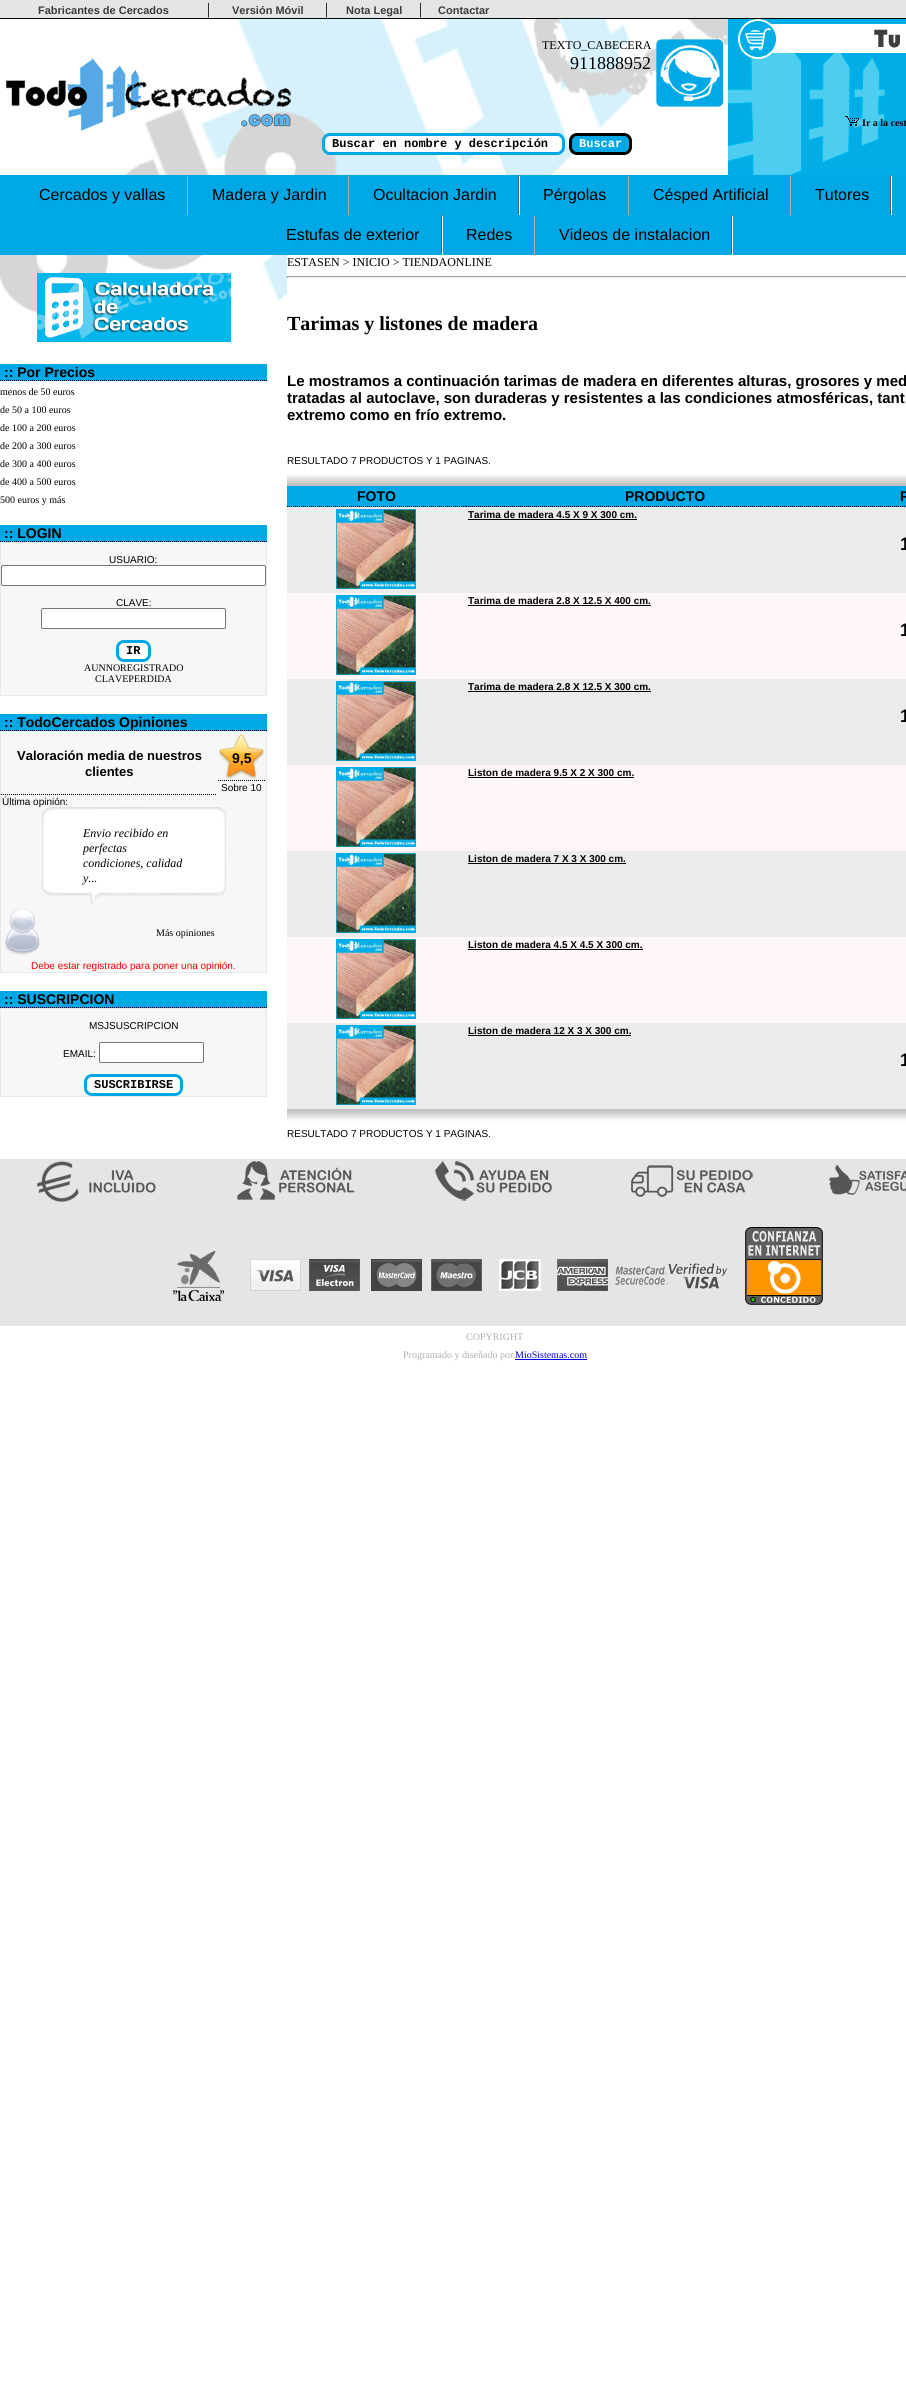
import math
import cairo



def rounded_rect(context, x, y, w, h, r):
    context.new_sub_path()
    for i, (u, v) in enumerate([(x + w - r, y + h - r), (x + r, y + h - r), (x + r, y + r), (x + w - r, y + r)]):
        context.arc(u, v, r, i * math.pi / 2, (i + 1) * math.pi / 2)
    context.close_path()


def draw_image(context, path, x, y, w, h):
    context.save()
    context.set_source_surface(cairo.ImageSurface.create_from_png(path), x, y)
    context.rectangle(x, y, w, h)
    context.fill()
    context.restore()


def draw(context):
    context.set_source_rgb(1, 1, 1)
    context.paint()
    context.set_source_rgb(0, 0, 0)
    context.rectangle(0, 18, 906, 1)
    context.fill()
    context.set_source_rgb(229 / 255, 229 / 255, 229 / 255)
    context.rectangle(0, 0, 906, 18)
    context.fill()
    draw_image(context, "images/1.png", 0, 19, 728, 294)
    draw_image(context, "images/2.png", 6, 58, 285, 74)
    draw_image(context, "images/3.png", 656, 39, 68, 68)
    context.set_source_rgb(1, 1, 1)
    rounded_rect(context, 323.5, 134.5, 240, 19, 6.5)
    context.fill_preserve()
    context.set_source_rgb(0, 168 / 255, 229 / 255)
    context.set_line_width(3)
    context.stroke()
    rounded_rect(context, 570.5, 134.5, 60, 19, 6.5)
    context.fill_preserve()
    context.set_source_rgb(0, 0, 0)
    context.stroke()
    draw_image(context, "images/4.png", 728, 19, 178, 156)
    draw_image(context, "images/5.png", 845, 116, 14, 10)
    context.set_source_rgb(0, 168 / 255, 230 / 255)
    context.rectangle(0, 175, 906, 80)
    context.fill()
    draw_image(context, "images/6.png", 187, 175, 1, 40)
    draw_image(context, "images/6.png", 348, 175, 1, 40)
    draw_image(context, "images/7.png", 518, 175, 2, 40)
    draw_image(context, "images/6.png", 628, 175, 1, 40)
    draw_image(context, "images/6.png", 790, 175, 1, 40)
    draw_image(context, "images/7.png", 890, 175, 2, 40)
    draw_image(context, "images/7.png", 441, 215, 2, 40)
    draw_image(context, "images/6.png", 534, 215, 1, 40)
    draw_image(context, "images/7.png", 731, 215, 2, 40)
    draw_image(context, "images/8.png", 37, 273, 194, 69)
    context.rectangle(0, 364, 267, 17)
    context.fill()
    context.new_path()
    context.move_to(0, 380.5)
    context.line_to(267, 380.5)
    context.set_source_rgb(0, 0, 0)
    context.set_line_width(1)
    context.set_dash([1, 1])
    context.stroke()
    context.set_source_rgb(0, 168 / 255, 230 / 255)
    context.rectangle(0, 525, 267, 17)
    context.fill()
    context.new_path()
    context.move_to(0, 541.5)
    context.line_to(267, 541.5)
    context.set_source_rgb(0, 0, 0)
    context.stroke()
    context.set_source_rgb(247 / 255, 247 / 255, 247 / 255)
    context.rectangle(0.5, 542.5, 266, 153)
    context.fill_preserve()
    context.set_source_rgb(233 / 255, 233 / 255, 233 / 255)
    context.set_dash([])
    context.stroke()
    context.set_source_rgb(1, 1, 1)
    rounded_rect(context, 1.5, 565.5, 264, 20, 1.5)
    context.fill_preserve()
    context.set_source_rgb(118 / 255, 118 / 255, 118 / 255)
    context.stroke()
    context.set_source_rgb(1, 1, 1)
    rounded_rect(context, 41.5, 608.5, 184, 20, 1.5)
    context.fill_preserve()
    context.set_source_rgb(118 / 255, 118 / 255, 118 / 255)
    context.stroke()
    context.set_source_rgb(1, 1, 1)
    rounded_rect(context, 117.5, 641.5, 32, 19, 6.5)
    context.fill_preserve()
    context.set_source_rgb(0, 168 / 255, 229 / 255)
    context.set_line_width(3)
    context.stroke()
    context.set_source_rgb(0, 168 / 255, 230 / 255)
    context.rectangle(0, 714, 267, 17)
    context.fill()
    context.new_path()
    context.move_to(0, 730.5)
    context.line_to(267, 730.5)
    context.set_source_rgb(0, 0, 0)
    context.set_line_width(1)
    context.set_dash([1, 1])
    context.stroke()
    context.set_source_rgb(247 / 255, 247 / 255, 247 / 255)
    context.rectangle(0.5, 731.5, 266, 241)
    context.fill_preserve()
    context.set_source_rgb(233 / 255, 233 / 255, 233 / 255)
    context.set_dash([])
    context.stroke()
    context.new_path()
    context.move_to(1, 794.5)
    context.line_to(217, 794.5)
    context.set_source_rgb(0, 0, 0)
    context.set_dash([1, 1])
    context.stroke()
    context.new_path()
    context.move_to(218, 780.5)
    context.line_to(265, 780.5)
    context.stroke()
    draw_image(context, "images/9.png", 219, 734, 45, 45)
    draw_image(context, "images/10.png", 42, 807, 184, 98)
    draw_image(context, "images/11.png", 5, 908, 35, 47)
    context.set_source_rgb(0, 168 / 255, 230 / 255)
    context.rectangle(0, 991, 267, 17)
    context.fill()
    context.new_path()
    context.move_to(0, 1007.5)
    context.line_to(267, 1007.5)
    context.set_source_rgb(0, 0, 0)
    context.stroke()
    context.set_source_rgb(247 / 255, 247 / 255, 247 / 255)
    context.rectangle(0.5, 1008.5, 266, 88)
    context.fill_preserve()
    context.set_source_rgb(233 / 255, 233 / 255, 233 / 255)
    context.set_dash([])
    context.stroke()
    context.set_source_rgb(1, 1, 1)
    rounded_rect(context, 99.5, 1042.5, 104, 20, 1.5)
    context.fill_preserve()
    context.set_source_rgb(118 / 255, 118 / 255, 118 / 255)
    context.stroke()
    context.set_source_rgb(1, 1, 1)
    rounded_rect(context, 85.5, 1075.5, 96, 19, 6.5)
    context.fill_preserve()
    context.set_source_rgb(0, 168 / 255, 229 / 255)
    context.set_line_width(3)
    context.stroke()
    context.set_source_rgb(1, 1, 1)
    context.rectangle(287, 255, 182, 58)
    context.fill()
    context.set_source_rgb(159 / 255, 159 / 255, 159 / 255)
    context.rectangle(287, 276, 619, 1)
    context.fill()
    context.set_source_rgb(238 / 255, 238 / 255, 238 / 255)
    context.rectangle(287, 277, 619, 1)
    context.fill()
    context.set_source_rgb(159 / 255, 159 / 255, 159 / 255)
    context.rectangle(287, 276, 1, 2)
    context.fill()
    draw_image(context, "images/12.png", 287, 474, 619, 12)
    context.set_source_rgb(0, 168 / 255, 230 / 255)
    context.rectangle(287, 486, 619, 21)
    context.fill()
    context.new_path()
    context.move_to(287, 506.5)
    context.line_to(466, 506.5)
    context.set_source_rgb(0, 0, 0)
    context.set_line_width(1)
    context.set_dash([1, 1])
    context.stroke()
    context.new_path()
    context.move_to(466, 506.5)
    context.line_to(864, 506.5)
    context.stroke()
    context.new_path()
    context.move_to(864, 506.5)
    context.line_to(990, 506.5)
    context.stroke()
    context.set_source_rgb(235 / 255, 235 / 255, 235 / 255)
    context.rectangle(287, 507, 619, 86)
    context.fill()
    draw_image(context, "images/13.png", 336, 509, 80, 80)
    context.set_source_rgb(0, 0, 0)
    context.rectangle(468, 519, 169, 1)
    context.fill()
    context.set_source_rgb(1, 246 / 255, 251 / 255)
    context.rectangle(287, 593, 619, 86)
    context.fill()
    draw_image(context, "images/13.png", 336, 595, 80, 80)
    context.set_source_rgb(0, 0, 0)
    context.rectangle(468, 605, 183, 1)
    context.fill()
    context.set_source_rgb(235 / 255, 235 / 255, 235 / 255)
    context.rectangle(287, 679, 619, 86)
    context.fill()
    draw_image(context, "images/13.png", 336, 681, 80, 80)
    context.set_source_rgb(0, 0, 0)
    context.rectangle(468, 691, 183, 1)
    context.fill()
    context.set_source_rgb(1, 246 / 255, 251 / 255)
    context.rectangle(287, 765, 619, 86)
    context.fill()
    draw_image(context, "images/13.png", 336, 767, 80, 80)
    context.set_source_rgb(0, 0, 0)
    context.rectangle(468, 777, 166, 1)
    context.fill()
    context.set_source_rgb(235 / 255, 235 / 255, 235 / 255)
    context.rectangle(287, 851, 619, 86)
    context.fill()
    draw_image(context, "images/13.png", 336, 853, 80, 80)
    context.set_source_rgb(0, 0, 0)
    context.rectangle(468, 863, 158, 1)
    context.fill()
    context.set_source_rgb(1, 246 / 255, 251 / 255)
    context.rectangle(287, 937, 619, 86)
    context.fill()
    draw_image(context, "images/13.png", 336, 939, 80, 80)
    context.set_source_rgb(0, 0, 0)
    context.rectangle(468, 949, 175, 1)
    context.fill()
    context.set_source_rgb(235 / 255, 235 / 255, 235 / 255)
    context.rectangle(287, 1023, 619, 86)
    context.fill()
    draw_image(context, "images/13.png", 336, 1025, 80, 80)
    context.set_source_rgb(0, 0, 0)
    context.rectangle(468, 1035, 163, 1)
    context.fill()
    draw_image(context, "images/14.png", 287, 1109, 619, 12)
    context.set_source_rgb(229 / 255, 229 / 255, 229 / 255)
    context.rectangle(0, 1159, 906, 167)
    context.fill()
    draw_image(context, "images/15.png", 36, 1160, 120, 42)
    draw_image(context, "images/16.png", 237, 1161, 118, 39)
    draw_image(context, "images/17.png", 435, 1161, 117, 40)
    draw_image(context, "images/18.png", 631, 1165, 122, 32)
    draw_image(context, "images/19.png", 829, 1165, 77, 30)
    draw_image(context, "images/20.png", 173, 1251, 555, 50)
    draw_image(context, "images/21.png", 745, 1227, 78, 78)
    context.set_source_rgb(0, 0, 238 / 255)
    context.rectangle(515, 1359, 72, 1)
    context.fill()
    context.select_font_face("Liberation Sans", cairo.FontSlant.NORMAL, cairo.FontWeight.BOLD)
    context.set_font_size(11)
    context.set_source_rgb(59 / 255, 59 / 255, 59 / 255)
    context.move_to(38, 14)
    context.show_text("Fabricantes de Cercados")
    context.select_font_face("Liberation Serif")
    context.set_font_size(16)
    context.set_source_rgb(0, 0, 0)
    context.move_to(207, 14)
    context.show_text("|")
    context.select_font_face("Liberation Sans", cairo.FontSlant.NORMAL, cairo.FontWeight.BOLD)
    context.set_font_size(11)
    context.set_source_rgb(59 / 255, 59 / 255, 59 / 255)
    context.move_to(232, 14)
    context.show_text("Versión Móvil")
    context.select_font_face("Liberation Serif")
    context.set_font_size(16)
    context.set_source_rgb(0, 0, 0)
    context.move_to(325, 14)
    context.show_text("|")
    context.select_font_face("Liberation Sans", cairo.FontSlant.NORMAL, cairo.FontWeight.BOLD)
    context.set_font_size(11)
    context.set_source_rgb(59 / 255, 59 / 255, 59 / 255)
    context.move_to(346, 14)
    context.show_text("Nota Legal")
    context.select_font_face("Liberation Serif")
    context.set_font_size(16)
    context.set_source_rgb(0, 0, 0)
    context.move_to(419, 14)
    context.show_text("|")
    context.select_font_face("Liberation Sans", cairo.FontSlant.NORMAL, cairo.FontWeight.BOLD)
    context.set_font_size(11)
    context.set_source_rgb(59 / 255, 59 / 255, 59 / 255)
    context.move_to(438, 14)
    context.show_text("Contactar")
    context.select_font_face("Liberation Serif")
    context.set_font_size(12)
    context.set_source_rgb(0, 0, 0)
    context.move_to(542, 49)
    context.show_text("TEXTO_CABECERA")
    context.set_font_size(18)
    context.move_to(570, 69)
    context.show_text("911888952")
    context.select_font_face("Liberation Mono", cairo.FontSlant.NORMAL, cairo.FontWeight.BOLD)
    context.set_font_size(12)
    context.move_to(332, 147)
    context.show_text("Buscar en nombre y descripción")
    context.set_source_rgb(1, 1, 1)
    context.move_to(579, 147)
    context.show_text("Buscar")
    context.select_font_face("Liberation Serif", cairo.FontSlant.NORMAL, cairo.FontWeight.BOLD)
    context.set_font_size(10)
    context.set_source_rgb(0, 0, 0)
    context.move_to(862, 126)
    context.show_text("Ir a la cest")
    context.select_font_face("Liberation Sans")
    context.set_font_size(16)
    context.move_to(39, 200)
    context.show_text("Cercados y vallas")
    context.move_to(212, 200)
    context.show_text("Madera y Jardin")
    context.move_to(373, 200)
    context.show_text("Ocultacion Jardin")
    context.move_to(543, 200)
    context.show_text("Pérgolas")
    context.move_to(653, 200)
    context.show_text("Césped Artificial")
    context.move_to(815, 200)
    context.show_text("Tutores")
    context.move_to(286, 240)
    context.show_text("Estufas de exterior")
    context.move_to(466, 240)
    context.show_text("Redes")
    context.move_to(559, 240)
    context.show_text("Videos de instalacion")
    context.select_font_face("Liberation Sans", cairo.FontSlant.NORMAL, cairo.FontWeight.BOLD)
    context.set_font_size(14)
    context.move_to(4, 377)
    context.show_text(":: Por Precios")
    context.select_font_face("Liberation Serif")
    context.set_font_size(10)
    context.move_to(0, 395)
    context.show_text("menos de 50 euros")
    context.move_to(0, 413)
    context.show_text("de 50 a 100 euros")
    context.move_to(0, 431)
    context.show_text("de 100 a 200 euros")
    context.move_to(0, 449)
    context.show_text("de 200 a 300 euros")
    context.move_to(0, 467)
    context.show_text("de 300 a 400 euros")
    context.move_to(0, 485)
    context.show_text("de 400 a 500 euros")
    context.move_to(0, 503)
    context.show_text("500 euros y más")
    context.select_font_face("Liberation Sans", cairo.FontSlant.NORMAL, cairo.FontWeight.BOLD)
    context.set_font_size(14)
    context.move_to(4, 538)
    context.show_text(":: LOGIN")
    context.select_font_face("Liberation Sans")
    context.set_font_size(10)
    context.move_to(109, 563)
    context.show_text("USUARIO:")
    context.move_to(116, 606)
    context.show_text("CLAVE:")
    context.select_font_face("Liberation Mono", cairo.FontSlant.NORMAL, cairo.FontWeight.BOLD)
    context.set_font_size(12)
    context.move_to(126, 654)
    context.show_text("IR")
    context.select_font_face("Liberation Serif")
    context.set_font_size(10)
    context.move_to(84, 671)
    context.show_text("AUNNOREGISTRADO")
    context.move_to(95, 682)
    context.show_text("CLAVEPERDIDA")
    context.select_font_face("Liberation Sans", cairo.FontSlant.NORMAL, cairo.FontWeight.BOLD)
    context.set_font_size(14)
    context.move_to(4, 727)
    context.show_text(":: TodoCercados Opiniones")
    context.set_font_size(13)
    context.move_to(17, 760)
    context.show_text("Valoración media de nuestros")
    context.move_to(85, 776)
    context.show_text("clientes")
    context.set_font_size(14)
    context.move_to(232, 763)
    context.show_text("9,5")
    context.select_font_face("Liberation Sans")
    context.set_font_size(10)
    context.move_to(221, 791)
    context.show_text("Sobre 10")
    context.move_to(2, 805)
    context.show_text("Última opinión:")
    context.select_font_face("Liberation Serif", cairo.FontSlant.ITALIC)
    context.set_font_size(12)
    context.move_to(83, 837)
    context.show_text("Envio recibido en")
    context.move_to(83, 852)
    context.show_text("perfectas")
    context.move_to(83, 867)
    context.show_text("condiciones, calidad")
    context.move_to(83, 882)
    context.show_text("y...")
    context.select_font_face("Liberation Serif")
    context.set_font_size(10)
    context.move_to(156, 936)
    context.show_text("Más opiniones")
    context.select_font_face("Liberation Sans")
    context.set_source_rgb(1, 0, 0)
    context.move_to(31, 969)
    context.show_text("Debe estar registrado para poner una opinión.")
    context.select_font_face("Liberation Sans", cairo.FontSlant.NORMAL, cairo.FontWeight.BOLD)
    context.set_font_size(14)
    context.set_source_rgb(0, 0, 0)
    context.move_to(4, 1004)
    context.show_text(":: SUSCRIPCION")
    context.select_font_face("Liberation Sans")
    context.set_font_size(10)
    context.move_to(89, 1029)
    context.show_text("MSJSUSCRIPCION")
    context.move_to(63, 1057)
    context.show_text("EMAIL:")
    context.select_font_face("Liberation Mono", cairo.FontSlant.NORMAL, cairo.FontWeight.BOLD)
    context.set_font_size(12)
    context.move_to(94, 1088)
    context.show_text("SUSCRIBIRSE")
    context.select_font_face("Liberation Serif")
    context.move_to(287, 266)
    context.show_text("ESTASEN > INICIO > TIENDAONLINE")
    context.select_font_face("Liberation Serif", cairo.FontSlant.NORMAL, cairo.FontWeight.BOLD)
    context.set_font_size(20)
    context.move_to(287, 330)
    context.show_text("Tarimas y listones de madera")
    context.select_font_face("Liberation Sans", cairo.FontSlant.NORMAL, cairo.FontWeight.BOLD)
    context.set_font_size(15)
    context.move_to(287, 386)
    context.show_text("Le mostramos a continuación tarimas de madera en diferentes alturas, grosores y med")
    context.move_to(287, 403)
    context.show_text("tratadas al autoclave, son duraderas y resistentes a las condiciones atmosféricas, tant")
    context.move_to(287, 420)
    context.show_text("extremo como en frío extremo.")
    context.select_font_face("Liberation Sans")
    context.set_font_size(10)
    context.move_to(287, 464)
    context.show_text("RESULTADO 7 PRODUCTOS Y 1 PAGINAS.")
    context.select_font_face("Liberation Sans", cairo.FontSlant.NORMAL, cairo.FontWeight.BOLD)
    context.set_font_size(14)
    context.move_to(357, 501)
    context.show_text("FOTO")
    context.move_to(625, 501)
    context.show_text("PRODUCTO")
    context.move_to(900, 501)
    context.show_text("P")
    context.set_font_size(10)
    context.move_to(468, 518)
    context.show_text("Tarima de madera 4.5 X 9 X 300 cm.")
    context.set_font_size(18)
    context.move_to(900, 550)
    context.show_text("1")
    context.set_font_size(10)
    context.move_to(468, 604)
    context.show_text("Tarima de madera 2.8 X 12.5 X 400 cm.")
    context.set_font_size(18)
    context.move_to(900, 636)
    context.show_text("1")
    context.set_font_size(10)
    context.move_to(468, 690)
    context.show_text("Tarima de madera 2.8 X 12.5 X 300 cm.")
    context.set_font_size(18)
    context.move_to(900, 722)
    context.show_text("1")
    context.set_font_size(10)
    context.move_to(468, 776)
    context.show_text("Liston de madera 9.5 X 2 X 300 cm.")
    context.move_to(468, 862)
    context.show_text("Liston de madera 7 X 3 X 300 cm.")
    context.move_to(468, 948)
    context.show_text("Liston de madera 4.5 X 4.5 X 300 cm.")
    context.move_to(468, 1034)
    context.show_text("Liston de madera 12 X 3 X 300 cm.")
    context.set_font_size(18)
    context.move_to(900, 1066)
    context.show_text("1")
    context.select_font_face("Liberation Sans")
    context.set_font_size(10)
    context.move_to(287, 1137)
    context.show_text("RESULTADO 7 PRODUCTOS Y 1 PAGINAS.")
    context.select_font_face("Liberation Serif")
    context.set_source_rgb(176 / 255, 176 / 255, 176 / 255)
    context.move_to(466, 1340)
    context.show_text("COPYRIGHT")
    context.move_to(403, 1358)
    context.show_text("Programado y diseñado por")
    context.set_source_rgb(0, 0, 238 / 255)
    context.move_to(515, 1358)
    context.show_text("MioSistemas.com")


surface = cairo.ImageSurface(cairo.Format.RGB24, 906, 2405)
context = cairo.Context(surface)
options = cairo.FontOptions()
options.set_hint_metrics(cairo.HintMetrics.OFF)
options.set_hint_style(cairo.HintStyle.NONE)
context.set_font_options(options)
context.set_miter_limit(4)
draw(context)
surface.write_to_png("out.png")
